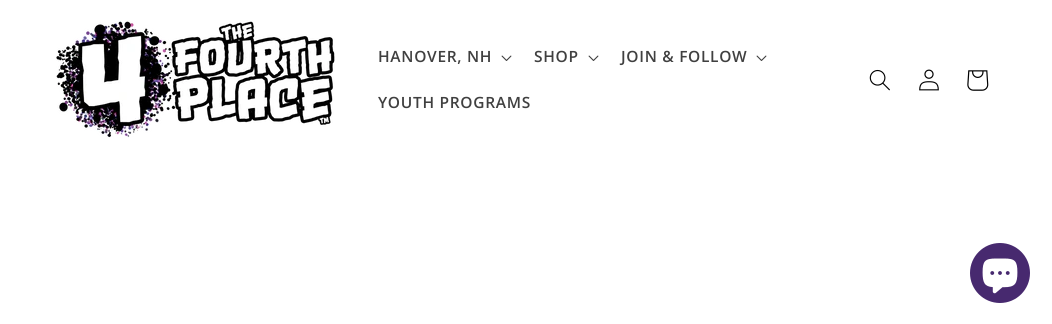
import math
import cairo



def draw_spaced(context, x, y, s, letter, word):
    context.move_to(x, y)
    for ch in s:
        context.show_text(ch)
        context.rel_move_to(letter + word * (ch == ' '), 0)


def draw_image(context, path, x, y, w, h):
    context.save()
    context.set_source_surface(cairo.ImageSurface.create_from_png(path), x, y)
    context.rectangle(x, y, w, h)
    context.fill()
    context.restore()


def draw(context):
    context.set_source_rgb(1, 1, 1)
    context.paint()
    draw_image(context, "images/1.png", 56, 20, 279, 118)
    draw_image(context, "images/2.png", 501, 55, 11, 6)
    draw_image(context, "images/2.png", 588, 55, 11, 6)
    draw_image(context, "images/2.png", 756, 55, 11, 6)
    draw_image(context, "images/3.png", 869, 69, 21, 22)
    draw_image(context, "images/4.png", 919, 69, 20, 22)
    draw_image(context, "images/5.png", 967, 70, 22, 21)
    context.set_source_rgb(71 / 255, 41 / 255, 111 / 255)
    context.arc(1000, 273, 30, 0, 2 * math.pi)
    context.fill()
    draw_image(context, "images/6.png", 982, 258, 36, 36)
    context.select_font_face("Open Sans SemiBold")
    context.set_font_size(15.5)
    context.set_source_rgb(64 / 255, 64 / 255, 64 / 255)
    draw_spaced(context, 378, 62, "HANOVER, NH", 0.7, 0)
    draw_spaced(context, 534, 62, "SHOP", 0.7, 0)
    draw_spaced(context, 621, 62, "JOIN & FOLLOW", 0.7, 0)
    draw_spaced(context, 378, 108, "YOUTH PROGRAMS", 0.7, 0)


surface = cairo.ImageSurface(cairo.Format.RGB24, 1052, 324)
context = cairo.Context(surface)
options = cairo.FontOptions()
options.set_hint_metrics(cairo.HintMetrics.OFF)
options.set_hint_style(cairo.HintStyle.NONE)
context.set_font_options(options)
context.set_miter_limit(4)
draw(context)
surface.write_to_png("out.png")
